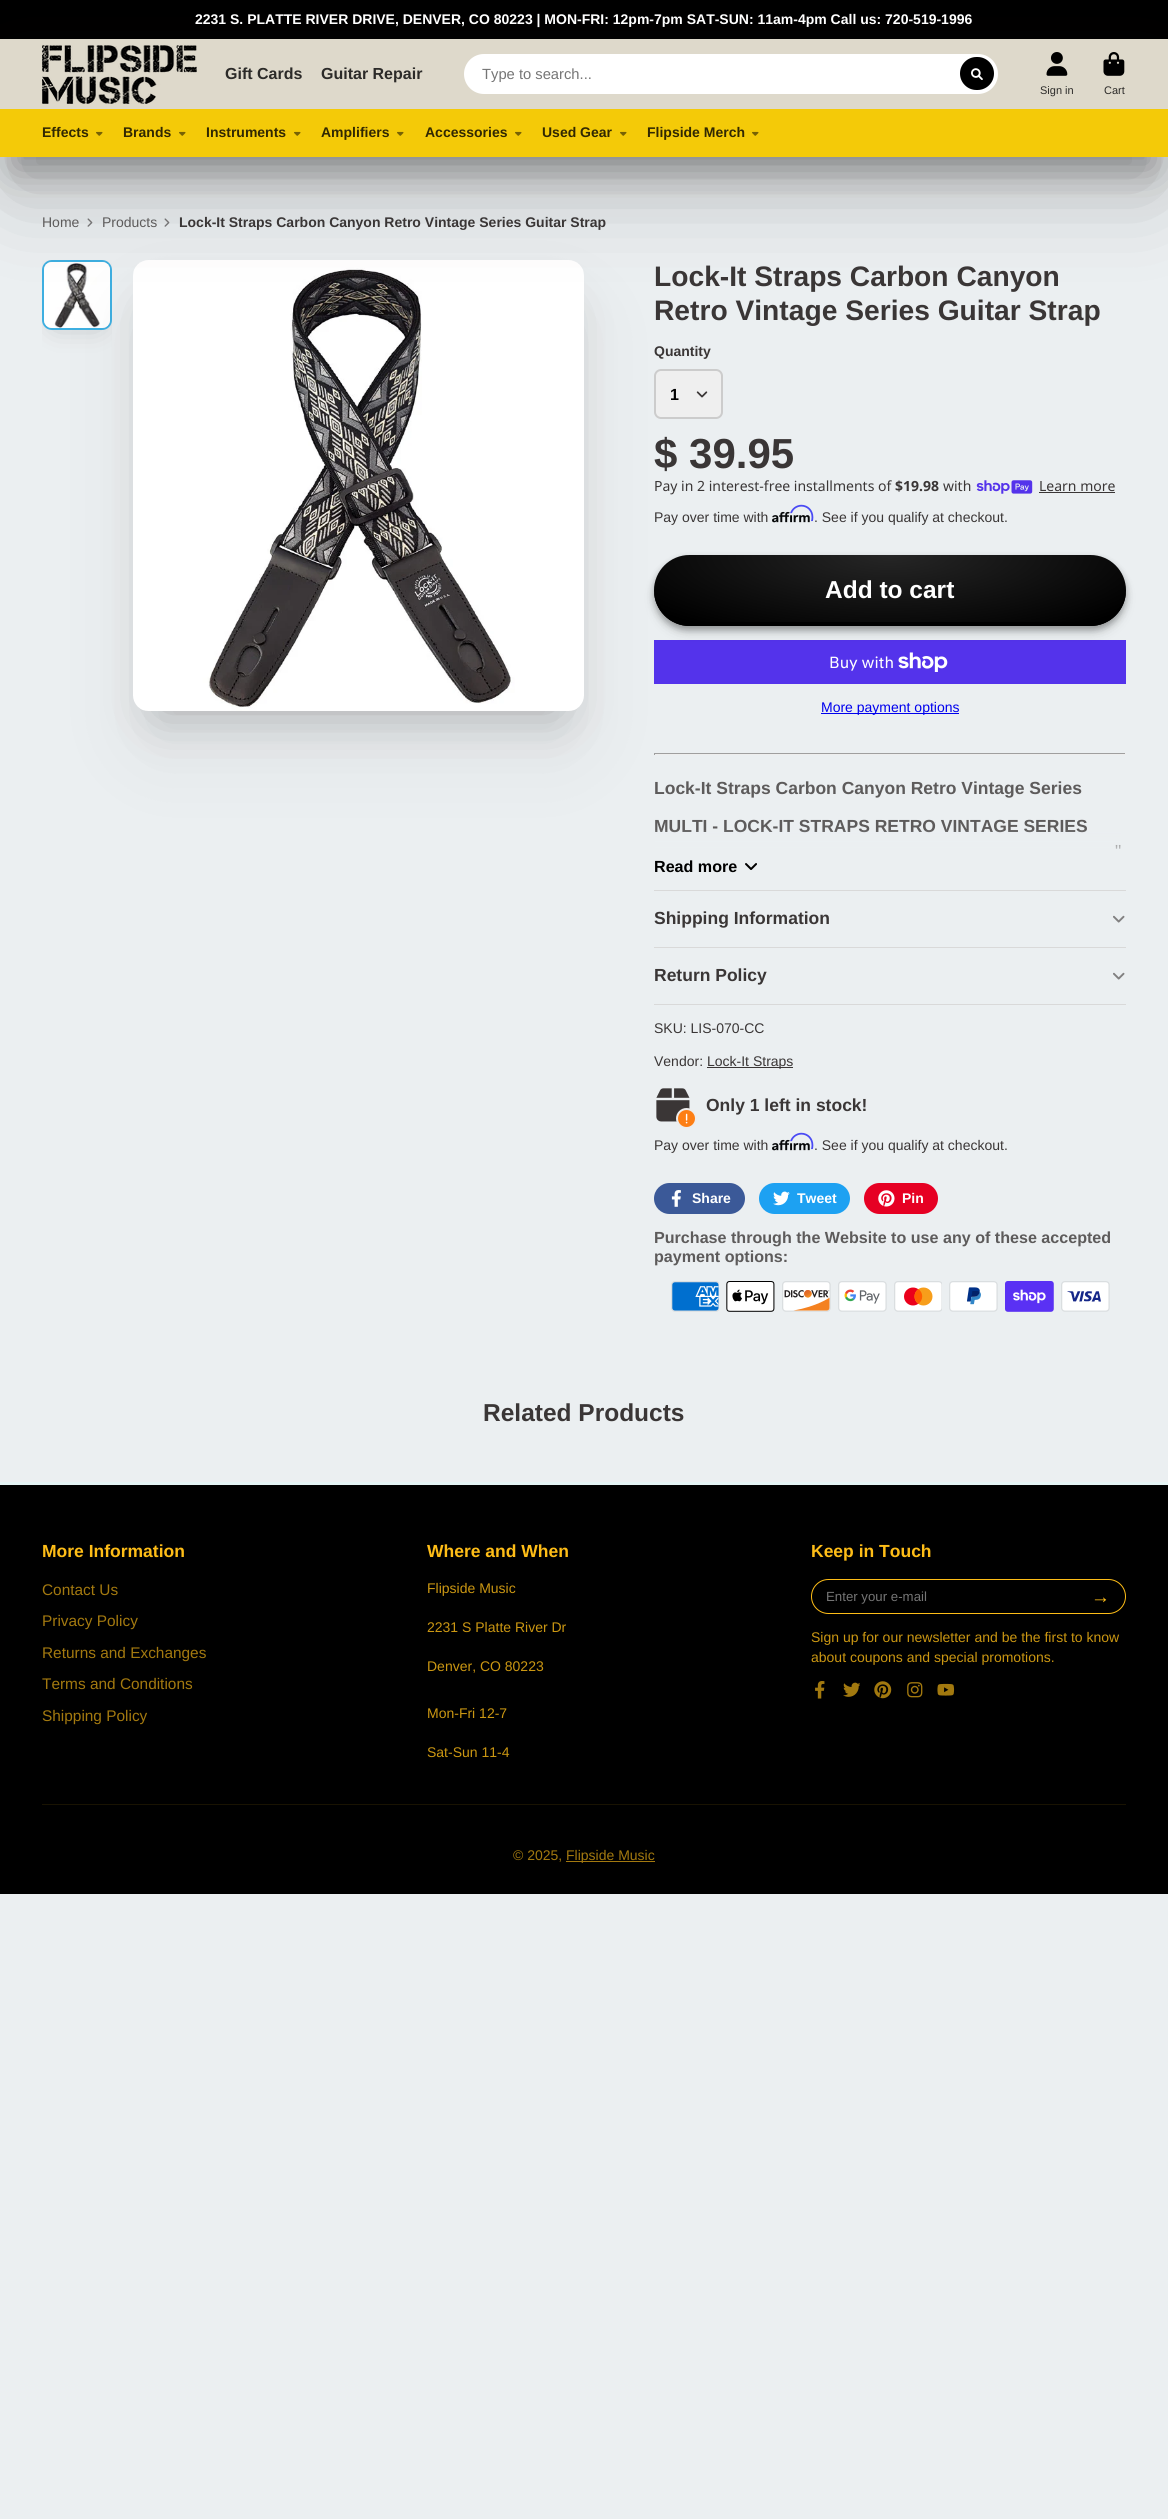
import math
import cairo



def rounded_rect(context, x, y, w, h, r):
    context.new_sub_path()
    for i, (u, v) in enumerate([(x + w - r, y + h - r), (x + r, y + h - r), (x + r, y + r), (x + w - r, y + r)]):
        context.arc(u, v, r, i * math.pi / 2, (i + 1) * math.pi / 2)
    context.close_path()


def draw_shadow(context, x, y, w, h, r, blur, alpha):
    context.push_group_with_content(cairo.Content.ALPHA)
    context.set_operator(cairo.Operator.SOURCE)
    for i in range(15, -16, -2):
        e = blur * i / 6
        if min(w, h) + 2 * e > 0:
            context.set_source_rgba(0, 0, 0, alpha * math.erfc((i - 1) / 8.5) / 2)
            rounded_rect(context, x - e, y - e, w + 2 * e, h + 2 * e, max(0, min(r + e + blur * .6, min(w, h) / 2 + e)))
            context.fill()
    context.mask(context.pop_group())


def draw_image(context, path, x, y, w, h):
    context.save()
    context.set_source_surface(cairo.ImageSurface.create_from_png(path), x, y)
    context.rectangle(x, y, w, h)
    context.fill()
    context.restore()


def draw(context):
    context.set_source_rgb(235 / 255, 239 / 255, 241 / 255)
    context.paint()
    context.set_source_rgb(0, 0, 0)
    context.rectangle(0, 0, 1168, 39)
    context.fill()
    draw_image(context, "images/6.png", 87, 218, 6, 9)
    draw_image(context, "images/6.png", 164, 218, 6, 9)
    context.set_source_rgb(45 / 255, 42 / 255, 42 / 255)
    draw_shadow(context, 14, 79, 1140, 90, 0, 19, 0.4)
    context.save()
    context.rectangle(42, 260, 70, 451)
    context.clip()
    draw_shadow(context, 56, 281, 42, 42, 0, 14, 0.3)
    context.restore()
    rounded_rect(context, 43, 261, 68, 68, 9)
    context.set_source_rgb(62 / 255, 175 / 255, 225 / 255)
    context.stroke()
    draw_image(context, "images/8.png", 44, 262, 66, 66)
    context.set_source_rgb(45 / 255, 42 / 255, 42 / 255)
    draw_shadow(context, 159, 313, 399, 398, 0, 26, 0.3)
    draw_shadow(context, 151, 321, 416, 416, 0, 44, 0.1)
    draw_image(context, "images/7.png", 133, 260, 451, 451)
    draw_shadow(context, 14, 97, 1140, 90, 0, 44, 0.3)
    context.set_source_rgb(222 / 255, 217 / 255, 203 / 255)
    context.rectangle(0, 39, 1168, 70)
    context.fill()
    draw_image(context, "images/1.png", 42, 45, 155, 59)
    context.set_source_rgb(1, 1, 1)
    rounded_rect(context, 464, 54, 534, 40, 20)
    context.fill()
    context.set_source_rgb(0, 0, 0)
    rounded_rect(context, 960, 57, 34, 33, 16.5)
    context.fill()
    draw_image(context, "images/2.png", 971, 68, 12, 12)
    draw_image(context, "images/3.png", 1046, 52, 22, 24)
    draw_image(context, "images/4.png", 1103, 52, 22, 24)
    context.set_source_rgb(244 / 255, 202 / 255, 8 / 255)
    context.rectangle(0, 109, 1168, 48)
    context.fill()
    draw_image(context, "images/5.png", 96, 131, 7, 5)
    draw_image(context, "images/5.png", 179, 131, 7, 5)
    draw_image(context, "images/5.png", 294, 131, 7, 5)
    draw_image(context, "images/5.png", 397, 131, 7, 5)
    draw_image(context, "images/5.png", 515, 131, 7, 5)
    draw_image(context, "images/5.png", 620, 131, 7, 5)
    draw_image(context, "images/5.png", 752, 131, 7, 5)
    context.set_source_rgb(239 / 255, 239 / 255, 239 / 255)
    rounded_rect(context, 655, 370, 67, 48, 6)
    context.fill_preserve()
    context.set_source_rgb(204 / 255, 204 / 255, 204 / 255)
    context.stroke()
    draw_image(context, "images/9.png", 696, 391, 12, 7)
    draw_image(context, "images/10.png", 976, 480, 57, 14)
    context.set_source_rgb(58 / 255, 54 / 255, 54 / 255)
    context.rectangle(1039, 492, 76, 1)
    context.fill()
    draw_image(context, "images/12.png", 772, 511, 38, 12)
    draw_image(context, "images/11.png", 790, 504, 24, 18)
    context.set_source_rgb(84 / 255, 51 / 255, 235 / 255)
    context.rectangle(654, 640, 472, 44)
    context.fill()
    draw_image(context, "images/13.png", 898, 652, 50, 20)
    context.set_source_rgb(0, 0, 0)
    draw_shadow(context, 658, 566, 464, 64, 32, 7.5, 0.15)
    draw_shadow(context, 654, 559, 472, 71, 35.5, 3.5, 0.3)
    context.save()
    rounded_rect(context, 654, 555, 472, 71, 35.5)
    context.clip()
    draw_shadow(context, 658, 566, 464, 64, 32, 7.5, 0.15)
    draw_shadow(context, 654, 559, 472, 71, 35.5, 3.5, 0.3)
    context.restore()
    gradient = cairo.RadialGradient(0, 0, 0, 0, 0, 1)
    gradient.set_matrix(cairo.Matrix(1 / 334, 0, 0, 1 / 100, -1 * 890 / 334, -1 * 555 / 100))
    gradient.add_color_stop_rgba(0, 38 / 255, 38 / 255, 38 / 255, 1)
    gradient.add_color_stop_rgba(0.9, 0, 0, 0, 1)
    context.set_source(gradient)
    rounded_rect(context, 654, 555, 472, 71, 35.5)
    context.fill()
    context.set_source_rgb(0, 0, 0)
    context.new_path()
    context.move_to(654, 589)
    context.line_to(654, 590)
    context.curve_to(654, 610, 670, 626, 690, 626)
    context.line_to(1090, 626)
    context.curve_to(1110, 626, 1126, 610, 1126, 590)
    context.line_to(1126, 589)
    context.curve_to(1125, 607, 1109, 622, 1090, 622)
    context.line_to(690, 622)
    context.curve_to(671, 622, 655, 607, 654, 589)
    context.close_path()
    context.fill()
    context.set_source_rgb(0, 0, 238 / 255)
    context.rectangle(821, 713, 138, 1)
    context.fill()
    context.set_source_rgb(159 / 255, 159 / 255, 159 / 255)
    context.rectangle(654, 753, 472, 1)
    context.fill()
    context.set_source_rgb(238 / 255, 238 / 255, 238 / 255)
    context.rectangle(1125, 753, 1, 2)
    context.fill()
    context.rectangle(654, 754, 472, 1)
    context.fill()
    context.set_source_rgb(159 / 255, 159 / 255, 159 / 255)
    context.rectangle(654, 753, 1, 2)
    context.fill()
    draw_image(context, "images/14.png", 745, 863, 12, 7)
    context.set_source_rgb(217 / 255, 217 / 255, 217 / 255)
    context.rectangle(654, 890, 472, 1)
    context.fill()
    context.rectangle(654, 947, 472, 1)
    context.fill()
    draw_image(context, "images/15.png", 1113, 915, 12, 8)
    context.rectangle(654, 1004, 472, 1)
    context.fill()
    draw_image(context, "images/15.png", 1113, 972, 12, 8)
    context.set_source_rgb(58 / 255, 54 / 255, 54 / 255)
    context.rectangle(707, 1067, 86, 1)
    context.fill()
    draw_image(context, "images/16.png", 656, 1088, 34, 34)
    context.set_source_rgb(253 / 255, 126 / 255, 20 / 255)
    context.arc(686.5, 1118.5, 9.5, 0, 2 * math.pi)
    context.fill_preserve()
    context.set_source_rgb(237 / 255, 237 / 255, 237 / 255)
    context.stroke()
    draw_image(context, "images/17.png", 685, 1113, 3, 11)
    draw_image(context, "images/12.png", 772, 1139, 38, 12)
    draw_image(context, "images/11.png", 790, 1132, 24, 18)
    context.set_source_rgb(59 / 255, 89 / 255, 152 / 255)
    rounded_rect(context, 654, 1183, 91, 31, 15.5)
    context.fill()
    draw_image(context, "images/18.png", 671, 1190, 10, 17)
    context.set_source_rgb(29 / 255, 161 / 255, 242 / 255)
    rounded_rect(context, 759, 1183, 91, 31, 15.5)
    context.fill()
    draw_image(context, "images/19.png", 773, 1191, 17, 15)
    context.set_source_rgb(230 / 255, 0, 35 / 255)
    rounded_rect(context, 864, 1183, 74, 31, 15.5)
    context.fill()
    draw_image(context, "images/20.png", 878, 1190, 17, 17)
    draw_image(context, "images/21.png", 671, 1281, 48, 31)
    draw_image(context, "images/22.png", 726, 1281, 49, 31)
    draw_image(context, "images/23.png", 782, 1281, 49, 31)
    draw_image(context, "images/24.png", 838, 1281, 49, 31)
    draw_image(context, "images/25.png", 894, 1281, 48, 31)
    draw_image(context, "images/26.png", 949, 1281, 49, 31)
    draw_image(context, "images/27.png", 1005, 1281, 49, 31)
    draw_image(context, "images/28.png", 1061, 1281, 49, 31)
    context.set_source_rgb(0, 0, 0)
    context.rectangle(0, 1485, 1168, 409)
    context.fill()
    context.set_source_rgb(229 / 255, 245 / 255, 245 / 255)
    context.rectangle(0, 1482, 1168, 3)
    context.fill()
    rounded_rect(context, 811.5, 1579.5, 314, 34, 17)
    context.set_source_rgb(254 / 255, 189 / 255, 23 / 255)
    context.set_line_width(1)
    context.stroke()
    draw_image(context, "images/29.png", 815, 1681, 10, 18)
    draw_image(context, "images/30.png", 843, 1682, 17, 15)
    draw_image(context, "images/31.png", 874, 1681, 18, 18)
    draw_image(context, "images/32.png", 907, 1682, 16, 16)
    draw_image(context, "images/33.png", 937, 1683, 18, 13)
    context.set_source_rgb(25 / 255, 19 / 255, 2 / 255)
    context.rectangle(42, 1804, 1084, 1)
    context.fill()
    context.set_source_rgb(163 / 255, 121 / 255, 15 / 255)
    context.rectangle(566, 1861, 89, 1)
    context.fill()
    context.select_font_face("Liberation Sans", cairo.FontSlant.NORMAL, cairo.FontWeight.BOLD)
    context.set_font_size(14)
    context.set_source_rgb(1, 1, 1)
    context.move_to(195, 24)
    context.show_text("2231 S. PLATTE RIVER DRIVE, DENVER, CO 80223 | MON-FRI: 12pm-7pm SAT-SUN: 11am-4pm Call us: 720-519-1996")
    context.set_font_size(16)
    context.set_source_rgb(44 / 255, 43 / 255, 41 / 255)
    context.move_to(225, 79)
    context.show_text("Gift Cards")
    context.move_to(321, 79)
    context.show_text("Guitar Repair")
    context.select_font_face("Liberation Sans")
    context.set_font_size(14.75)
    context.set_source_rgb(117 / 255, 117 / 255, 117 / 255)
    context.move_to(482, 79)
    context.show_text("Type to search...")
    context.set_font_size(11)
    context.set_source_rgb(44 / 255, 43 / 255, 41 / 255)
    context.move_to(1040, 94)
    context.show_text("Sign in")
    context.move_to(1104, 94)
    context.show_text("Cart")
    context.select_font_face("Liberation Sans", cairo.FontSlant.NORMAL, cairo.FontWeight.BOLD)
    context.set_font_size(14)
    context.set_source_rgb(49 / 255, 40 / 255, 2 / 255)
    context.move_to(42, 137)
    context.show_text("Effects")
    context.move_to(123, 137)
    context.show_text("Brands")
    context.move_to(206, 137)
    context.show_text("Instruments")
    context.move_to(321, 137)
    context.show_text("Amplifiers")
    context.move_to(425, 137)
    context.show_text("Accessories")
    context.move_to(542, 137)
    context.show_text("Used Gear")
    context.move_to(647, 137)
    context.show_text("Flipside Merch")
    context.select_font_face("Liberation Sans")
    context.set_source_rgb(93 / 255, 91 / 255, 91 / 255)
    context.move_to(42, 227)
    context.show_text("Home")
    context.move_to(102, 227)
    context.show_text("Products")
    context.select_font_face("Liberation Sans", cairo.FontSlant.NORMAL, cairo.FontWeight.BOLD)
    context.set_source_rgb(58 / 255, 54 / 255, 54 / 255)
    context.move_to(179, 227)
    context.show_text("Lock-It Straps Carbon Canyon Retro Vintage Series Guitar Strap")
    context.set_font_size(28.2)
    context.move_to(654, 286)
    context.show_text("Lock-It Straps Carbon Canyon")
    context.move_to(654, 320)
    context.show_text("Retro Vintage Series Guitar Strap")
    context.set_font_size(14)
    context.move_to(654, 356)
    context.show_text("Quantity")
    context.set_font_size(16.1)
    context.set_source_rgb(0, 0, 0)
    context.move_to(670, 400)
    context.show_text("1")
    context.set_font_size(42)
    context.set_source_rgb(58 / 255, 54 / 255, 54 / 255)
    context.move_to(654, 468)
    context.show_text("$ 39.95")
    context.select_font_face("Noto Sans")
    context.set_font_size(14)
    context.move_to(654, 491)
    context.show_text("Pay in 2 interest-free installments of")
    context.select_font_face("Noto Sans", cairo.FontSlant.NORMAL, cairo.FontWeight.BOLD)
    context.move_to(895, 491)
    context.show_text("$19.98")
    context.select_font_face("Noto Sans")
    context.move_to(943, 491)
    context.show_text("with")
    context.move_to(1039, 491)
    context.show_text("Learn more")
    context.select_font_face("Liberation Sans")
    context.move_to(654, 522)
    context.show_text("Pay over time with")
    context.move_to(814, 522)
    context.show_text(". See if you qualify at checkout.")
    context.select_font_face("Liberation Sans", cairo.FontSlant.NORMAL, cairo.FontWeight.BOLD)
    context.set_font_size(24.5)
    context.set_source_rgb(1, 1, 1)
    context.move_to(825, 598)
    context.show_text("Add to cart")
    context.select_font_face("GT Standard")
    context.set_font_size(16)
    context.move_to(829, 668)
    context.show_text("Buy with")
    context.select_font_face("Liberation Sans")
    context.set_font_size(14)
    context.set_source_rgb(0, 0, 238 / 255)
    context.move_to(821, 712)
    context.show_text("More payment options")
    context.select_font_face("Liberation Sans", cairo.FontSlant.NORMAL, cairo.FontWeight.BOLD)
    context.set_font_size(17.5)
    context.set_source_rgb(93 / 255, 91 / 255, 91 / 255)
    context.move_to(654, 794)
    context.show_text("Lock-It Straps Carbon Canyon Retro Vintage Series")
    context.move_to(654, 832)
    context.show_text("MULTI - LOCK-IT STRAPS RETRO VINTAGE SERIES")
    context.select_font_face("Liberation Sans")
    context.move_to(1115, 857)
    context.show_text("\"")
    gradient = cairo.LinearGradient(890, 876, 890, 829)
    gradient.add_color_stop_rgba(0.35, 235 / 255, 239 / 255, 241 / 255, 1)
    gradient.add_color_stop_rgba(1, 235 / 255, 239 / 255, 241 / 255, 0)
    context.set_source(gradient)
    context.rectangle(655, 830, 466, 19)
    context.fill()
    context.select_font_face("Liberation Sans", cairo.FontSlant.NORMAL, cairo.FontWeight.BOLD)
    context.set_font_size(16.1)
    context.set_source_rgb(0, 0, 0)
    context.move_to(654, 872)
    context.show_text("Read more")
    context.set_font_size(17.5)
    context.set_source_rgb(58 / 255, 54 / 255, 54 / 255)
    context.move_to(654, 924)
    context.show_text("Shipping Information")
    context.move_to(654, 981)
    context.show_text("Return Policy")
    context.select_font_face("Liberation Sans")
    context.set_font_size(14)
    context.move_to(654, 1033)
    context.show_text("SKU: LIS-070-CC")
    context.move_to(654, 1066)
    context.show_text("Vendor:")
    context.move_to(707, 1066)
    context.show_text("Lock-It Straps")
    context.select_font_face("Liberation Sans", cairo.FontSlant.NORMAL, cairo.FontWeight.BOLD)
    context.set_font_size(17.5)
    context.move_to(706, 1111)
    context.show_text("Only 1 left in stock!")
    context.select_font_face("Liberation Sans")
    context.set_font_size(14)
    context.move_to(654, 1150)
    context.show_text("Pay over time with")
    context.move_to(814, 1150)
    context.show_text(". See if you qualify at checkout.")
    context.select_font_face("Liberation Sans", cairo.FontSlant.NORMAL, cairo.FontWeight.BOLD)
    context.set_source_rgb(1, 1, 1)
    context.move_to(692, 1203)
    context.show_text("Share")
    context.move_to(797, 1203)
    context.show_text("Tweet")
    context.move_to(902, 1203)
    context.show_text("Pin")
    context.set_font_size(16.1)
    context.set_source_rgb(93 / 255, 91 / 255, 91 / 255)
    context.move_to(654, 1243)
    context.show_text("Purchase through the Website to use any of these accepted")
    context.move_to(654, 1262)
    context.show_text("payment options:")
    context.set_font_size(24.5)
    context.set_source_rgb(58 / 255, 54 / 255, 54 / 255)
    context.move_to(483, 1421)
    context.show_text("Related Products")
    context.set_font_size(17.5)
    context.set_source_rgb(254 / 255, 189 / 255, 23 / 255)
    context.move_to(42, 1557)
    context.show_text("More Information")
    context.select_font_face("Liberation Sans")
    context.set_font_size(15.4)
    context.set_source_rgb(163 / 255, 121 / 255, 15 / 255)
    context.move_to(42, 1595)
    context.show_text("Contact Us")
    context.move_to(42, 1626)
    context.show_text("Privacy Policy")
    context.move_to(42, 1658)
    context.show_text("Returns and Exchanges")
    context.move_to(42, 1689)
    context.show_text("Terms and Conditions")
    context.move_to(42, 1721)
    context.show_text("Shipping Policy")
    context.select_font_face("Liberation Sans", cairo.FontSlant.NORMAL, cairo.FontWeight.BOLD)
    context.set_font_size(17.5)
    context.set_source_rgb(254 / 255, 189 / 255, 23 / 255)
    context.move_to(427, 1557)
    context.show_text("Where and When")
    context.select_font_face("Liberation Sans")
    context.set_font_size(14)
    context.set_source_rgb(203 / 255, 151 / 255, 18 / 255)
    context.move_to(427, 1593)
    context.show_text("Flipside Music")
    context.move_to(427, 1632)
    context.show_text("2231 S Platte River Dr")
    context.move_to(427, 1671)
    context.show_text("Denver, CO 80223")
    context.move_to(427, 1718)
    context.show_text("Mon-Fri 12-7")
    context.move_to(427, 1757)
    context.show_text("Sat-Sun 11-4")
    context.select_font_face("Liberation Sans", cairo.FontSlant.NORMAL, cairo.FontWeight.BOLD)
    context.set_font_size(17.5)
    context.set_source_rgb(254 / 255, 189 / 255, 23 / 255)
    context.move_to(811, 1557)
    context.show_text("Keep in Touch")
    context.select_font_face("Liberation Sans")
    context.set_font_size(13.25)
    context.set_source_rgb(117 / 255, 117 / 255, 117 / 255)
    context.move_to(826, 1601)
    context.show_text("Enter your e-mail")
    context.set_font_size(19)
    context.set_source_rgb(254 / 255, 189 / 255, 23 / 255)
    context.move_to(1091, 1603)
    context.show_text("→")
    context.set_font_size(14)
    context.set_source_rgb(203 / 255, 151 / 255, 18 / 255)
    context.move_to(811, 1642)
    context.show_text("Sign up for our newsletter and be the first to know")
    context.move_to(811, 1662)
    context.show_text("about coupons and special promotions.")
    context.set_source_rgb(163 / 255, 121 / 255, 15 / 255)
    context.move_to(513, 1860)
    context.show_text("© 2025,")
    context.move_to(566, 1860)
    context.show_text("Flipside Music")


surface = cairo.ImageSurface(cairo.Format.RGB24, 1168, 2519)
context = cairo.Context(surface)
options = cairo.FontOptions()
options.set_hint_metrics(cairo.HintMetrics.OFF)
options.set_hint_style(cairo.HintStyle.NONE)
context.set_font_options(options)
context.set_miter_limit(4)
draw(context)
surface.write_to_png("out.png")
